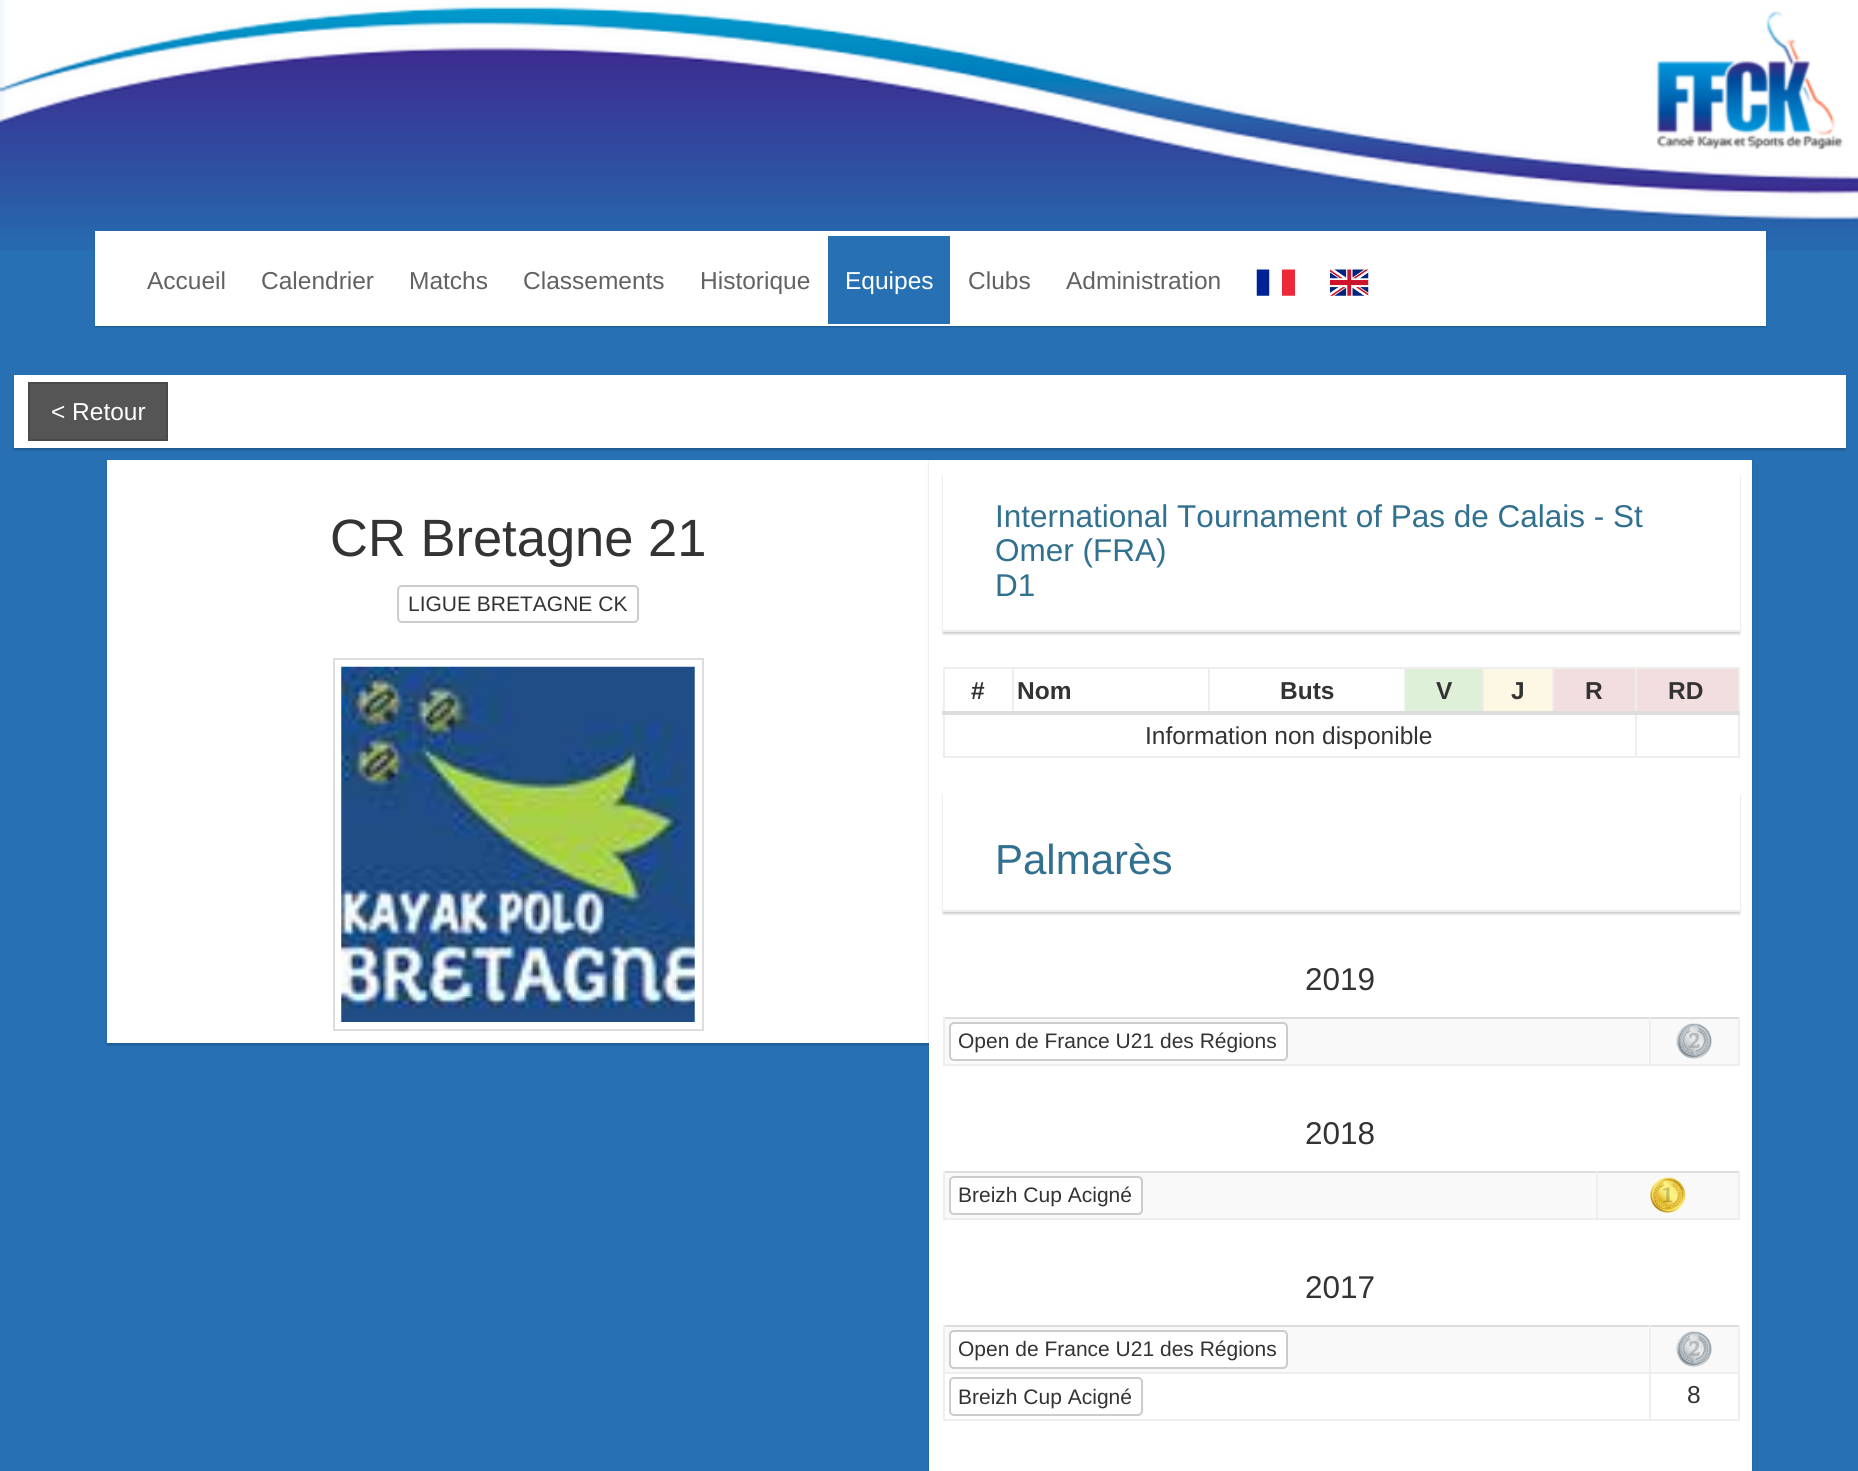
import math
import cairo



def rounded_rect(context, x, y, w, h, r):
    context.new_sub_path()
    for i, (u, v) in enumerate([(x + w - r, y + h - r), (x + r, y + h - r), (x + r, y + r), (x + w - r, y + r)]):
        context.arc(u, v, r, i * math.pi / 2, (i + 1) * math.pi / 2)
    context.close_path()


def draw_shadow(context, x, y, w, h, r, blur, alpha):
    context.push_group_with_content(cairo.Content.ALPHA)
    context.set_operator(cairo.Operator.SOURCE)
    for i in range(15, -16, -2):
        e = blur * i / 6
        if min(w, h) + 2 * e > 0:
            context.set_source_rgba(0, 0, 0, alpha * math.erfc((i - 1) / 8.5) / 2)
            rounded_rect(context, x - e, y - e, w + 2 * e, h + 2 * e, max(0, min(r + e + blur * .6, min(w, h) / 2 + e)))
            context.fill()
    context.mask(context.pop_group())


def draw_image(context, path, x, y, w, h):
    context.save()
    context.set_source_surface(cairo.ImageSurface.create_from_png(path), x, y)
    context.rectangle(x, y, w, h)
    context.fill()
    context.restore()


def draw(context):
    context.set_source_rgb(38 / 255, 112 / 255, 179 / 255)
    context.paint()
    draw_image(context, "images/1.png", 0, 0, 1858, 251)
    context.set_source_rgb(0, 0, 0)
    draw_shadow(context, 95, 233, 1671, 94, 0, 1, 0.2)
    context.set_source_rgb(1, 1, 1)
    context.rectangle(95, 231, 1671, 95)
    context.fill()
    context.set_source_rgb(38 / 255, 112 / 255, 179 / 255)
    context.rectangle(828, 236, 122, 88)
    context.fill()
    draw_image(context, "images/2.png", 1256, 269, 39, 27)
    draw_image(context, "images/3.png", 1330, 269, 39, 27)
    context.set_source_rgb(0, 0, 0)
    draw_shadow(context, 14, 376, 1832, 74, 0, 1, 0.2)
    context.set_source_rgb(1, 1, 1)
    context.rectangle(14, 375, 1832, 73)
    context.fill()
    context.set_source_rgb(85 / 255, 85 / 255, 85 / 255)
    context.rectangle(29, 383, 138, 57)
    context.fill_preserve()
    context.set_source_rgb(73 / 255, 73 / 255, 73 / 255)
    context.stroke()
    context.set_source_rgb(0, 0, 0)
    draw_shadow(context, 107, 462, 822, 583, 0, 1, 0.2)
    context.set_source_rgb(1, 1, 1)
    context.rectangle(107, 460, 822, 583)
    context.fill()
    rounded_rect(context, 398, 586, 240, 36, 4)
    context.set_source_rgb(204 / 255, 204 / 255, 204 / 255)
    context.stroke()
    context.rectangle(334, 659, 369, 371)
    context.set_source_rgb(221 / 255, 221 / 255, 221 / 255)
    context.stroke()
    draw_image(context, "images/4.png", 341, 666, 354, 356)
    context.set_source_rgb(0, 0, 0)
    draw_shadow(context, 929, 462, 823, 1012, 0, 1, 0.2)
    context.set_source_rgb(1, 1, 1)
    context.rectangle(929, 460, 823, 1011)
    context.fill()
    context.set_source_rgb(0, 0, 0)
    draw_shadow(context, 943, 476, 797, 158, 0, 1, 0.2)
    context.set_source_rgb(1, 1, 1)
    context.rectangle(943, 474, 797, 156)
    context.fill()
    context.set_source_rgb(238 / 255, 238 / 255, 238 / 255)
    context.rectangle(943, 630, 797, 2)
    context.fill()
    context.rectangle(943, 667, 797, 2)
    context.fill()
    context.rectangle(1738, 712, 2, 46)
    context.fill()
    context.rectangle(1738, 667, 2, 47)
    context.fill()
    context.rectangle(943, 756, 797, 2)
    context.fill()
    context.rectangle(943, 667, 2, 91)
    context.fill()
    context.rectangle(1012, 667, 2, 47)
    context.fill()
    context.rectangle(1208, 667, 2, 47)
    context.fill()
    context.set_source_rgb(223 / 255, 240 / 255, 216 / 255)
    context.rectangle(1406, 669, 76, 42)
    context.fill()
    context.set_source_rgb(238 / 255, 238 / 255, 238 / 255)
    context.rectangle(1404, 667, 2, 47)
    context.fill()
    context.set_source_rgb(252 / 255, 248 / 255, 227 / 255)
    context.rectangle(1484, 669, 68, 42)
    context.fill()
    context.set_source_rgb(238 / 255, 238 / 255, 238 / 255)
    context.rectangle(1482, 667, 2, 47)
    context.fill()
    context.set_source_rgb(242 / 255, 222 / 255, 222 / 255)
    context.rectangle(1554, 669, 81, 42)
    context.fill()
    context.set_source_rgb(238 / 255, 238 / 255, 238 / 255)
    context.rectangle(1552, 667, 2, 47)
    context.fill()
    context.set_source_rgb(242 / 255, 222 / 255, 222 / 255)
    context.rectangle(1637, 669, 101, 42)
    context.fill()
    context.set_source_rgb(238 / 255, 238 / 255, 238 / 255)
    context.rectangle(1635, 667, 2, 91)
    context.fill()
    context.set_source_rgb(221 / 255, 221 / 255, 221 / 255)
    context.rectangle(942, 711, 798, 4)
    context.fill()
    context.set_source_rgb(0, 0, 0)
    draw_shadow(context, 943, 795, 797, 119, 0, 1, 0.2)
    context.set_source_rgb(1, 1, 1)
    context.rectangle(943, 793, 797, 117)
    context.fill()
    context.set_source_rgb(238 / 255, 238 / 255, 238 / 255)
    context.rectangle(943, 910, 797, 2)
    context.fill()
    context.rectangle(943, 1064, 797, 2)
    context.fill()
    context.set_source_rgb(249 / 255, 249 / 255, 249 / 255)
    context.rectangle(1651, 1019, 87, 45)
    context.fill()
    context.set_source_rgb(221 / 255, 221 / 255, 221 / 255)
    context.rectangle(943, 1017, 797, 2)
    context.fill()
    context.set_source_rgb(238 / 255, 238 / 255, 238 / 255)
    context.rectangle(1738, 1017, 2, 49)
    context.fill()
    draw_image(context, "images/5.png", 1676, 1023, 36, 36)
    context.set_source_rgb(249 / 255, 249 / 255, 249 / 255)
    context.rectangle(945, 1019, 704, 45)
    context.fill()
    context.set_source_rgb(238 / 255, 238 / 255, 238 / 255)
    context.rectangle(1649, 1017, 2, 49)
    context.fill()
    context.rectangle(943, 1017, 2, 49)
    context.fill()
    context.set_source_rgb(1, 1, 1)
    rounded_rect(context, 950, 1023, 337, 37, 4)
    context.fill_preserve()
    context.set_source_rgb(204 / 255, 204 / 255, 204 / 255)
    context.stroke()
    context.set_source_rgb(238 / 255, 238 / 255, 238 / 255)
    context.rectangle(943, 1218, 797, 2)
    context.fill()
    context.set_source_rgb(249 / 255, 249 / 255, 249 / 255)
    context.rectangle(1598, 1173, 140, 45)
    context.fill()
    context.set_source_rgb(221 / 255, 221 / 255, 221 / 255)
    context.rectangle(943, 1171, 797, 2)
    context.fill()
    context.set_source_rgb(238 / 255, 238 / 255, 238 / 255)
    context.rectangle(1738, 1171, 2, 49)
    context.fill()
    draw_image(context, "images/6.png", 1650, 1177, 36, 36)
    context.set_source_rgb(249 / 255, 249 / 255, 249 / 255)
    context.rectangle(945, 1173, 651, 45)
    context.fill()
    context.set_source_rgb(238 / 255, 238 / 255, 238 / 255)
    context.rectangle(1596, 1171, 2, 49)
    context.fill()
    context.rectangle(943, 1171, 2, 49)
    context.fill()
    context.set_source_rgb(1, 1, 1)
    rounded_rect(context, 950, 1177, 192, 37, 4)
    context.fill_preserve()
    context.set_source_rgb(204 / 255, 204 / 255, 204 / 255)
    context.stroke()
    context.set_source_rgb(249 / 255, 249 / 255, 249 / 255)
    context.rectangle(1651, 1327, 87, 45)
    context.fill()
    context.set_source_rgb(221 / 255, 221 / 255, 221 / 255)
    context.rectangle(943, 1325, 797, 2)
    context.fill()
    context.set_source_rgb(238 / 255, 238 / 255, 238 / 255)
    context.rectangle(943, 1419, 797, 2)
    context.fill()
    context.rectangle(1738, 1372, 2, 49)
    context.fill()
    context.rectangle(1738, 1325, 2, 49)
    context.fill()
    context.rectangle(1649, 1372, 2, 49)
    context.fill()
    context.rectangle(1649, 1372, 91, 2)
    context.fill()
    draw_image(context, "images/7.png", 1676, 1331, 36, 36)
    context.set_source_rgb(249 / 255, 249 / 255, 249 / 255)
    context.rectangle(945, 1327, 704, 45)
    context.fill()
    context.set_source_rgb(238 / 255, 238 / 255, 238 / 255)
    context.rectangle(1649, 1325, 2, 49)
    context.fill()
    context.rectangle(943, 1372, 2, 49)
    context.fill()
    context.rectangle(943, 1372, 707, 2)
    context.fill()
    context.rectangle(943, 1325, 2, 49)
    context.fill()
    context.set_source_rgb(1, 1, 1)
    rounded_rect(context, 950, 1331, 337, 37, 4)
    context.fill_preserve()
    context.set_source_rgb(204 / 255, 204 / 255, 204 / 255)
    context.stroke()
    rounded_rect(context, 950, 1378, 192, 37, 4)
    context.stroke()
    context.select_font_face("Liberation Sans")
    context.set_font_size(24.5)
    context.set_source_rgb(98 / 255, 98 / 255, 98 / 255)
    context.move_to(147, 289)
    context.show_text("Accueil")
    context.move_to(261, 289)
    context.show_text("Calendrier")
    context.move_to(409, 289)
    context.show_text("Matchs")
    context.move_to(523, 289)
    context.show_text("Classements")
    context.move_to(700, 289)
    context.show_text("Historique")
    context.set_source_rgb(1, 1, 1)
    context.move_to(845, 289)
    context.show_text("Equipes")
    context.set_source_rgb(98 / 255, 98 / 255, 98 / 255)
    context.move_to(968, 289)
    context.show_text("Clubs")
    context.move_to(1066, 289)
    context.show_text("Administration")
    context.set_source_rgb(1, 1, 1)
    context.move_to(51, 420)
    context.show_text("< Retour")
    context.set_font_size(52.5)
    context.set_source_rgb(51 / 255, 51 / 255, 51 / 255)
    context.move_to(330, 556)
    context.show_text("CR Bretagne 21")
    context.set_font_size(21)
    context.move_to(408, 611)
    context.show_text("LIGUE BRETAGNE CK")
    context.set_font_size(31.5)
    context.set_source_rgb(49 / 255, 112 / 255, 143 / 255)
    context.move_to(995, 527)
    context.show_text("International Tournament of Pas de Calais - St")
    context.move_to(995, 561)
    context.show_text("Omer (FRA)")
    context.move_to(995, 596)
    context.show_text("D1")
    context.select_font_face("Liberation Sans", cairo.FontSlant.NORMAL, cairo.FontWeight.BOLD)
    context.set_font_size(24.5)
    context.set_source_rgb(51 / 255, 51 / 255, 51 / 255)
    context.move_to(971, 699)
    context.show_text("#")
    context.move_to(1017, 699)
    context.show_text("Nom")
    context.move_to(1280, 699)
    context.show_text("Buts")
    context.move_to(1436, 699)
    context.show_text("V")
    context.move_to(1511, 699)
    context.show_text("J")
    context.move_to(1585, 699)
    context.show_text("R")
    context.move_to(1668, 699)
    context.show_text("RD")
    context.select_font_face("Liberation Sans")
    context.move_to(1145, 744)
    context.show_text("Information non disponible")
    context.set_font_size(42)
    context.set_source_rgb(49 / 255, 112 / 255, 143 / 255)
    context.move_to(995, 874)
    context.show_text("Palmarès")
    context.set_font_size(31.5)
    context.set_source_rgb(51 / 255, 51 / 255, 51 / 255)
    context.move_to(1305, 990)
    context.show_text("2019")
    context.set_font_size(21)
    context.move_to(958, 1048)
    context.show_text("Open de France U21 des Régions")
    context.set_font_size(31.5)
    context.move_to(1305, 1144)
    context.show_text("2018")
    context.set_font_size(21)
    context.move_to(958, 1202)
    context.show_text("Breizh Cup Acigné")
    context.set_font_size(31.5)
    context.move_to(1305, 1298)
    context.show_text("2017")
    context.set_font_size(21)
    context.move_to(958, 1356)
    context.show_text("Open de France U21 des Régions")
    context.move_to(958, 1404)
    context.show_text("Breizh Cup Acigné")
    context.set_font_size(24.5)
    context.move_to(1687, 1403)
    context.show_text("8")


surface = cairo.ImageSurface(cairo.Format.RGB24, 1858, 1471)
context = cairo.Context(surface)
options = cairo.FontOptions()
options.set_hint_metrics(cairo.HintMetrics.OFF)
options.set_hint_style(cairo.HintStyle.NONE)
context.set_font_options(options)
context.set_miter_limit(4)
draw(context)
surface.write_to_png("out.png")
